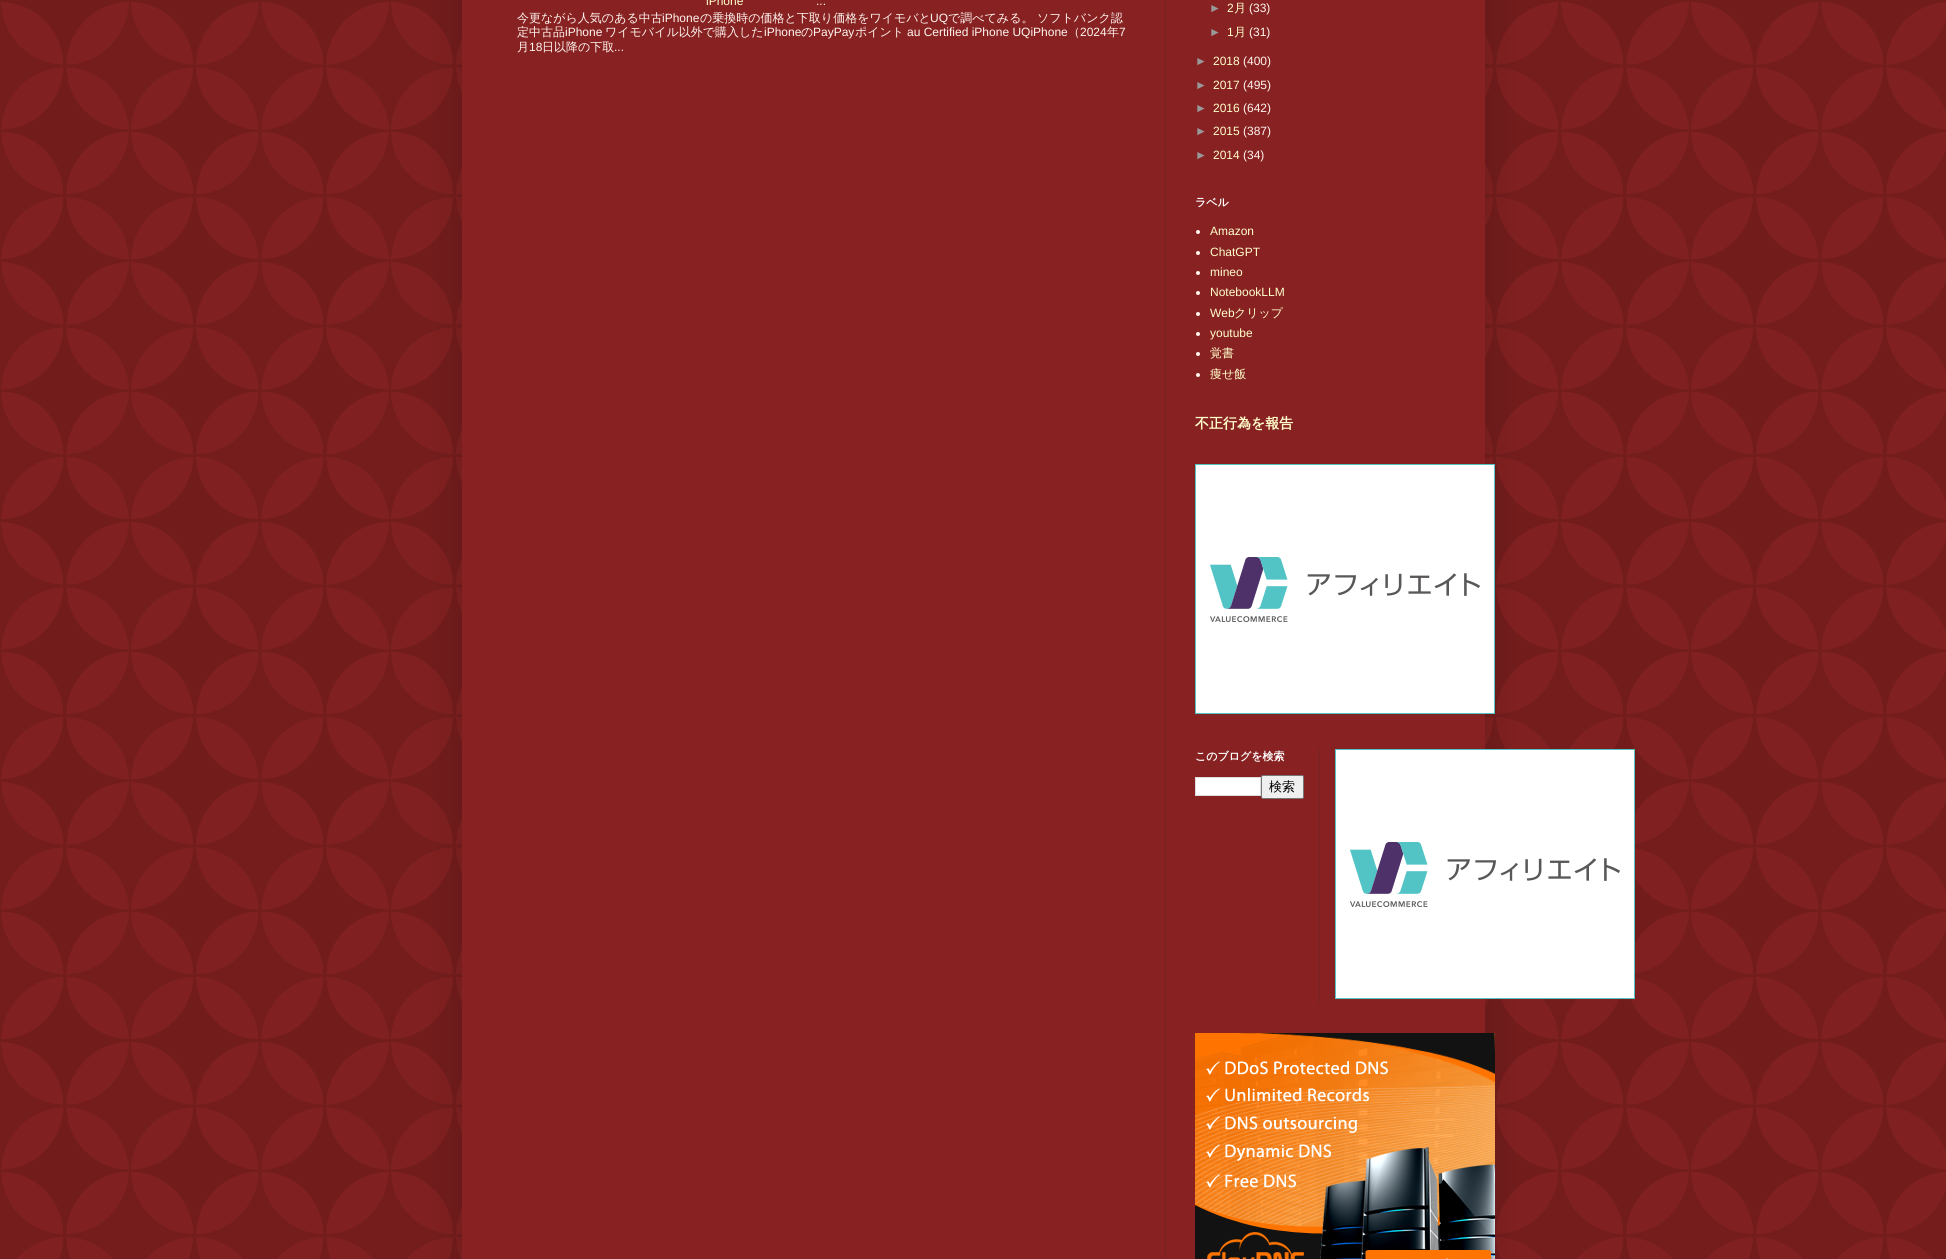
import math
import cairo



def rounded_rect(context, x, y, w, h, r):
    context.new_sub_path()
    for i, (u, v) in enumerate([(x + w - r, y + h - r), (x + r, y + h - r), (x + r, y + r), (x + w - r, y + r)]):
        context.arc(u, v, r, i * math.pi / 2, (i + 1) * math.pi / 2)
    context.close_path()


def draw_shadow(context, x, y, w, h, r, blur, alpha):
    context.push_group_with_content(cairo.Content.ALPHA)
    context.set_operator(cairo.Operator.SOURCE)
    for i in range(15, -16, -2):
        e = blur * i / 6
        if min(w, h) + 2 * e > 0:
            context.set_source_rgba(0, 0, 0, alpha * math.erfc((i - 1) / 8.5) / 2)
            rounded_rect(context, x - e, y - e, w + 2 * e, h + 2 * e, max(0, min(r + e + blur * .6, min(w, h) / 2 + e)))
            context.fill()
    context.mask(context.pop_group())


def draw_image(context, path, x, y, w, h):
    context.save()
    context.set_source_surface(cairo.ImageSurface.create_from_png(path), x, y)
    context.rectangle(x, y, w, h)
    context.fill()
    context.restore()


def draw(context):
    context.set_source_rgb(136 / 255, 34 / 255, 34 / 255)
    context.paint()
    draw_image(context, "images/1.png", 0, 0, 1946, 1259)
    context.set_source_rgb(0, 0, 0)
    draw_shadow(context, 462, -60, 1023, 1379, 0, 20, 0.15)
    context.set_source_rgb(136 / 255, 34 / 255, 34 / 255)
    context.rectangle(462, 0, 1023, 1259)
    context.fill()
    context.set_source_rgb(1, 245 / 255, 238 / 255)
    context.arc(1198, 232, 2, 0, 2 * math.pi)
    context.fill()
    context.arc(1198, 253, 2, 0, 2 * math.pi)
    context.fill()
    context.arc(1198, 273, 2, 0, 2 * math.pi)
    context.fill()
    context.arc(1198, 293, 2, 0, 2 * math.pi)
    context.fill()
    context.arc(1198, 314, 2, 0, 2 * math.pi)
    context.fill()
    context.arc(1198, 334, 2, 0, 2 * math.pi)
    context.fill()
    context.arc(1198, 354, 2, 0, 2 * math.pi)
    context.fill()
    context.arc(1198, 375, 2, 0, 2 * math.pi)
    context.fill()
    draw_image(context, "images/2.png", 1195, 464, 300, 250)
    context.set_source_rgb(1, 1, 1)
    context.rectangle(1195.5, 777.5, 65, 18)
    context.fill_preserve()
    context.set_source_rgb(221 / 255, 221 / 255, 221 / 255)
    context.set_line_width(1)
    context.stroke()
    context.set_source_rgb(239 / 255, 239 / 255, 239 / 255)
    rounded_rect(context, 1261.5, 775.5, 42, 23, 1.5)
    context.fill_preserve()
    context.set_source_rgb(118 / 255, 118 / 255, 118 / 255)
    context.stroke()
    context.set_source_rgb(119 / 255, 34 / 255, 34 / 255)
    context.rectangle(1319, 749, 1, 254)
    context.fill()
    draw_image(context, "images/2.png", 1335, 749, 300, 250)
    draw_image(context, "images/3.png", 1195, 1033, 300, 226)
    context.rectangle(1165, 0, 1, 1259)
    context.fill()
    context.select_font_face("Liberation Sans")
    context.set_font_size(12)
    context.set_source_rgb(1, 1, 204 / 255)
    context.move_to(706, 5)
    context.show_text("iPhone")
    context.move_to(816, 5)
    context.show_text("...")
    context.select_font_face("WenQuanYi Zen Hei Medium")
    context.set_source_rgb(1, 245 / 255, 238 / 255)
    context.move_to(517, 22)
    context.show_text("今更ながら人気のある中古")
    context.select_font_face("Liberation Sans")
    context.move_to(662, 22)
    context.show_text("iPhone")
    context.select_font_face("WenQuanYi Zen Hei Medium")
    context.move_to(700, 22)
    context.show_text("の乗換時の価格と下取り価格をワイモバと")
    context.select_font_face("Liberation Sans")
    context.move_to(930, 22)
    context.show_text("UQ")
    context.select_font_face("WenQuanYi Zen Hei Medium")
    context.move_to(948, 22)
    context.show_text("で調べてみる。 ソフトバンク認")
    context.move_to(517, 36)
    context.show_text("定中古品")
    context.select_font_face("Liberation Sans")
    context.move_to(565, 36)
    context.show_text("iPhone")
    context.select_font_face("WenQuanYi Zen Hei Medium")
    context.move_to(605, 36)
    context.show_text("ワイモバイル以外で購入した")
    context.select_font_face("Liberation Sans")
    context.move_to(764, 36)
    context.show_text("iPhone")
    context.select_font_face("WenQuanYi Zen Hei Medium")
    context.move_to(801, 36)
    context.show_text("の")
    context.select_font_face("Liberation Sans")
    context.move_to(813, 36)
    context.show_text("PayPay")
    context.select_font_face("WenQuanYi Zen Hei Medium")
    context.move_to(855, 36)
    context.show_text("ポイント")
    context.select_font_face("Liberation Sans")
    context.move_to(907, 36)
    context.show_text("au Certified iPhone UQiPhone")
    context.select_font_face("WenQuanYi Zen Hei Medium")
    context.move_to(1068, 36)
    context.show_text("（")
    context.select_font_face("Liberation Sans")
    context.move_to(1080, 36)
    context.show_text("2024")
    context.select_font_face("WenQuanYi Zen Hei Medium")
    context.move_to(1107, 36)
    context.show_text("年")
    context.select_font_face("Liberation Sans")
    context.move_to(1119, 36)
    context.show_text("7")
    context.select_font_face("WenQuanYi Zen Hei Medium")
    context.move_to(517, 51)
    context.show_text("月")
    context.select_font_face("Liberation Sans")
    context.move_to(529, 51)
    context.show_text("18")
    context.select_font_face("WenQuanYi Zen Hei Medium")
    context.move_to(542, 51)
    context.show_text("日以降の下取")
    context.select_font_face("Liberation Sans")
    context.move_to(614, 51)
    context.show_text("...")
    context.set_source_rgb(153 / 255, 153 / 255, 153 / 255)
    context.move_to(1209, 12)
    context.show_text("►")
    context.set_source_rgb(1, 1, 204 / 255)
    context.move_to(1227, 12)
    context.show_text("2")
    context.select_font_face("WenQuanYi Zen Hei Medium")
    context.move_to(1234, 12)
    context.show_text("月")
    context.select_font_face("Liberation Sans")
    context.set_source_rgb(1, 245 / 255, 238 / 255)
    context.move_to(1249, 12)
    context.show_text("(33)")
    context.set_source_rgb(153 / 255, 153 / 255, 153 / 255)
    context.move_to(1209, 36)
    context.show_text("►")
    context.set_source_rgb(1, 1, 204 / 255)
    context.move_to(1227, 36)
    context.show_text("1")
    context.select_font_face("WenQuanYi Zen Hei Medium")
    context.move_to(1234, 36)
    context.show_text("月")
    context.select_font_face("Liberation Sans")
    context.set_source_rgb(1, 245 / 255, 238 / 255)
    context.move_to(1249, 36)
    context.show_text("(31)")
    context.set_source_rgb(153 / 255, 153 / 255, 153 / 255)
    context.move_to(1195, 65)
    context.show_text("►")
    context.set_source_rgb(1, 1, 204 / 255)
    context.move_to(1213, 65)
    context.show_text("2018")
    context.set_source_rgb(1, 245 / 255, 238 / 255)
    context.move_to(1243, 65)
    context.show_text("(400)")
    context.set_source_rgb(153 / 255, 153 / 255, 153 / 255)
    context.move_to(1195, 89)
    context.show_text("►")
    context.set_source_rgb(1, 1, 204 / 255)
    context.move_to(1213, 89)
    context.show_text("2017")
    context.set_source_rgb(1, 245 / 255, 238 / 255)
    context.move_to(1243, 89)
    context.show_text("(495)")
    context.set_source_rgb(153 / 255, 153 / 255, 153 / 255)
    context.move_to(1195, 112)
    context.show_text("►")
    context.set_source_rgb(1, 1, 204 / 255)
    context.move_to(1213, 112)
    context.show_text("2016")
    context.set_source_rgb(1, 245 / 255, 238 / 255)
    context.move_to(1243, 112)
    context.show_text("(642)")
    context.set_source_rgb(153 / 255, 153 / 255, 153 / 255)
    context.move_to(1195, 135)
    context.show_text("►")
    context.set_source_rgb(1, 1, 204 / 255)
    context.move_to(1213, 135)
    context.show_text("2015")
    context.set_source_rgb(1, 245 / 255, 238 / 255)
    context.move_to(1243, 135)
    context.show_text("(387)")
    context.set_source_rgb(153 / 255, 153 / 255, 153 / 255)
    context.move_to(1195, 159)
    context.show_text("►")
    context.set_source_rgb(1, 1, 204 / 255)
    context.move_to(1213, 159)
    context.show_text("2014")
    context.set_source_rgb(1, 245 / 255, 238 / 255)
    context.move_to(1243, 159)
    context.show_text("(34)")
    context.select_font_face("WenQuanYi Zen Hei", cairo.FontSlant.NORMAL, cairo.FontWeight.BOLD)
    context.set_font_size(11)
    context.set_source_rgb(1, 1, 1)
    context.move_to(1195, 206)
    context.show_text("ラベル")
    context.select_font_face("Liberation Sans")
    context.set_font_size(12)
    context.set_source_rgb(1, 1, 204 / 255)
    context.move_to(1210, 235)
    context.show_text("Amazon")
    context.move_to(1210, 256)
    context.show_text("ChatGPT")
    context.move_to(1210, 276)
    context.show_text("mineo")
    context.move_to(1210, 296)
    context.show_text("NotebookLLM")
    context.move_to(1210, 317)
    context.show_text("Web")
    context.select_font_face("WenQuanYi Zen Hei Medium")
    context.move_to(1234, 317)
    context.show_text("クリップ")
    context.select_font_face("Liberation Sans")
    context.move_to(1210, 337)
    context.show_text("youtube")
    context.select_font_face("WenQuanYi Zen Hei Medium")
    context.move_to(1210, 357)
    context.show_text("覚書")
    context.move_to(1210, 378)
    context.show_text("痩せ飯")
    context.select_font_face("WenQuanYi Zen Hei", cairo.FontSlant.NORMAL, cairo.FontWeight.BOLD)
    context.set_font_size(14)
    context.move_to(1195, 428)
    context.show_text("不正行為を報告")
    context.set_font_size(11)
    context.set_source_rgb(1, 1, 1)
    context.move_to(1195, 760)
    context.show_text("このブログを検索")
    context.select_font_face("WenQuanYi Zen Hei Medium")
    context.set_font_size(13)
    context.set_source_rgb(0, 0, 0)
    context.move_to(1269, 791)
    context.show_text("検索")


surface = cairo.ImageSurface(cairo.Format.RGB24, 1946, 1259)
context = cairo.Context(surface)
options = cairo.FontOptions()
options.set_hint_metrics(cairo.HintMetrics.OFF)
options.set_hint_style(cairo.HintStyle.NONE)
context.set_font_options(options)
context.set_miter_limit(4)
draw(context)
surface.write_to_png("out.png")
